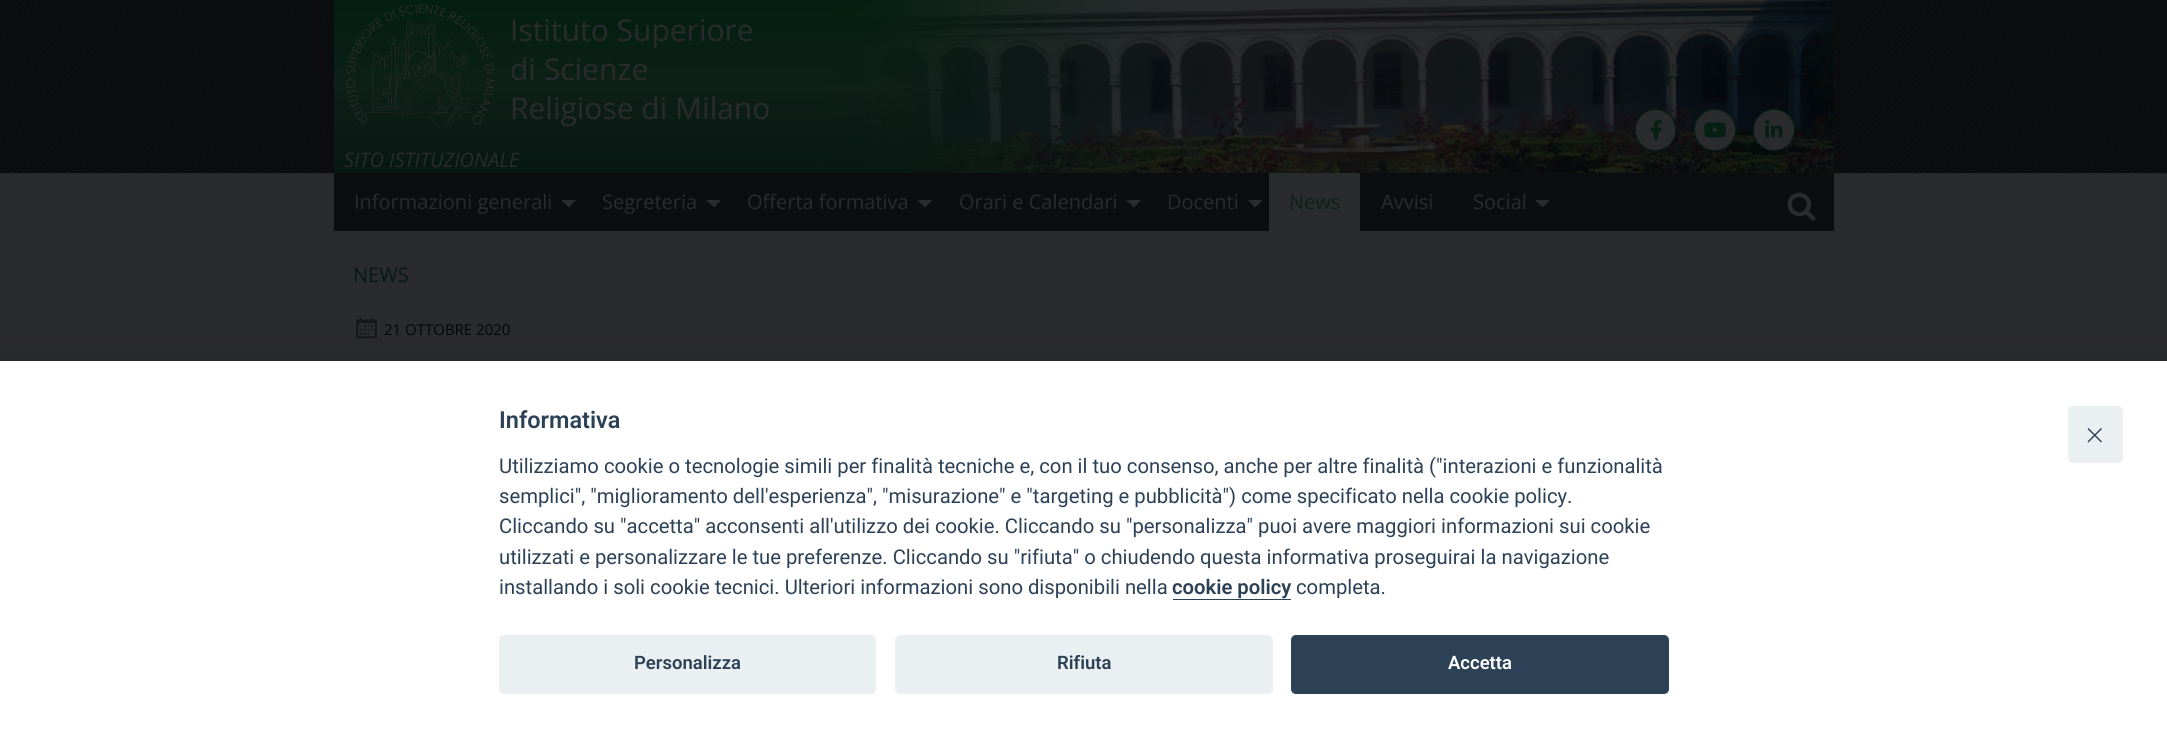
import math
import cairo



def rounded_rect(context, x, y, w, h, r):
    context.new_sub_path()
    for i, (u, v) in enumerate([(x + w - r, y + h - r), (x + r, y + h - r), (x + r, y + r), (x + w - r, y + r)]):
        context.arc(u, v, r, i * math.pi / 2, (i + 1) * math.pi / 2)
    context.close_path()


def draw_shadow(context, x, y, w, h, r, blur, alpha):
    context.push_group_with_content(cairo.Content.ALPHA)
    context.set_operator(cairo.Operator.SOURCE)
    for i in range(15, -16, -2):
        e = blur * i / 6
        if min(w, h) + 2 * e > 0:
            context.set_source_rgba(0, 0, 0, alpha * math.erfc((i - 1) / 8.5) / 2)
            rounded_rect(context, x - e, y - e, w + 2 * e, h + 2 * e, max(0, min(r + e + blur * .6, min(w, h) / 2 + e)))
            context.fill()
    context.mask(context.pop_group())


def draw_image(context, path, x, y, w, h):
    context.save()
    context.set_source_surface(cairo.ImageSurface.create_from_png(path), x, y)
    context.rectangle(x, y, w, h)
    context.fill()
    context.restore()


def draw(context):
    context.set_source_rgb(42 / 255, 43 / 255, 45 / 255)
    context.paint()
    context.set_source_rgb(12 / 255, 14 / 255, 16 / 255)
    context.rectangle(0, 0, 2167, 173)
    context.fill()
    draw_image(context, "images/1.png", 0, 0, 2167, 174)
    context.set_source_rgb(7 / 255, 24 / 255, 18 / 255)
    context.rectangle(334, 0, 1500, 173)
    context.fill()
    draw_image(context, "images/2.png", 334, 0, 1500, 173)
    draw_image(context, "images/3.png", 346, 4, 149, 124)
    context.set_source_rgb(42 / 255, 43 / 255, 45 / 255)
    rounded_rect(context, 1635.5, 109.5, 40, 41, 20)
    context.fill_preserve()
    context.set_source_rgb(5 / 255, 31 / 255, 19 / 255)
    context.set_line_width(1)
    context.stroke()
    draw_image(context, "images/4.png", 1650, 120, 12, 20)
    context.set_source_rgb(42 / 255, 43 / 255, 45 / 255)
    context.arc(1715, 130, 20.5, 0, 2 * math.pi)
    context.fill_preserve()
    context.set_source_rgb(5 / 255, 31 / 255, 19 / 255)
    context.stroke()
    draw_image(context, "images/5.png", 1704, 122, 22, 16)
    context.set_source_rgb(42 / 255, 43 / 255, 45 / 255)
    context.arc(1774, 130, 20.5, 0, 2 * math.pi)
    context.fill_preserve()
    context.set_source_rgb(5 / 255, 31 / 255, 19 / 255)
    context.stroke()
    draw_image(context, "images/6.png", 1765, 120, 18, 18)
    context.set_source_rgb(11 / 255, 13 / 255, 14 / 255)
    context.rectangle(334, 173, 1500, 58)
    context.fill()
    draw_image(context, "images/7.png", 1787, 192, 29, 29)
    context.set_source_rgb(42 / 255, 43 / 255, 45 / 255)
    context.new_path()
    context.move_to(561, 200)
    context.line_to(576, 200)
    context.line_to(569, 207.5)
    context.close_path()
    context.fill()
    context.new_path()
    context.move_to(706, 200)
    context.line_to(721, 200)
    context.line_to(714, 207.5)
    context.close_path()
    context.fill()
    context.new_path()
    context.move_to(917.5, 200)
    context.line_to(932.5, 200)
    context.line_to(925, 207.5)
    context.close_path()
    context.fill()
    context.new_path()
    context.move_to(1126, 200)
    context.line_to(1141, 200)
    context.line_to(1134, 207.5)
    context.close_path()
    context.fill()
    context.new_path()
    context.move_to(1247.5, 200)
    context.line_to(1262.5, 200)
    context.line_to(1255, 207.5)
    context.close_path()
    context.fill()
    context.rectangle(1269, 173, 91, 58)
    context.fill()
    context.new_path()
    context.move_to(1535, 200)
    context.line_to(1550, 200)
    context.line_to(1542.5, 207.5)
    context.close_path()
    context.fill()
    draw_image(context, "images/8.png", 356, 317, 21, 22)
    context.set_source_rgb(2 / 255, 2 / 255, 3 / 255)
    draw_shadow(context, 0, 375, 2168, 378, 0, 21, 0.28)
    context.set_source_rgb(1, 1, 1)
    context.rectangle(0, 361, 2167, 377)
    context.fill()
    context.set_source_rgb(45 / 255, 65 / 255, 86 / 255)
    context.rectangle(1173, 599, 118, 1)
    context.fill()
    context.set_source_rgb(234 / 255, 239 / 255, 242 / 255)
    rounded_rect(context, 499, 635, 377, 59, 5)
    context.fill()
    rounded_rect(context, 895, 635, 378, 59, 5)
    context.fill()
    context.set_source_rgb(45 / 255, 65 / 255, 86 / 255)
    rounded_rect(context, 1291, 635, 378, 59, 5)
    context.fill()
    context.set_source_rgb(234 / 255, 239 / 255, 242 / 255)
    rounded_rect(context, 2068, 406, 55, 57, 5)
    context.fill()
    context.set_source_rgb(45 / 255, 65 / 255, 86 / 255)
    context.new_path()
    context.move_to(2101.5, 428.5)
    context.curve_to(2102, 428.5, 2102, 429, 2101.5, 429.5)
    context.line_to(2089, 442)
    context.curve_to(2089, 442.5, 2088, 442.5, 2088, 442)
    context.curve_to(2087.5, 441.5, 2087.5, 441, 2088, 441)
    context.line_to(2100.5, 428.5)
    context.curve_to(2100.5, 428, 2101.5, 428, 2101.5, 428.5)
    context.close_path()
    context.fill()
    context.new_path()
    context.move_to(2088, 428.5)
    context.curve_to(2088, 428, 2089, 428, 2089, 428.5)
    context.line_to(2101.5, 441)
    context.curve_to(2102, 441, 2102, 441.5, 2101.5, 442)
    context.curve_to(2101.5, 442.5, 2100.5, 442.5, 2100.5, 442)
    context.line_to(2088, 429.5)
    context.curve_to(2087.5, 429, 2087.5, 428.5, 2088, 428.5)
    context.close_path()
    context.fill()
    context.select_font_face("Open Sans")
    context.set_font_size(30)
    context.set_source_rgb(42 / 255, 43 / 255, 45 / 255)
    context.move_to(510, 41)
    context.show_text("Istituto Superiore")
    context.move_to(510, 80)
    context.show_text("di Scienze")
    context.move_to(510, 119)
    context.show_text("Religiose di Milano")
    context.select_font_face("Open Sans", cairo.FontSlant.ITALIC)
    context.set_font_size(20)
    context.move_to(344, 167)
    context.show_text("SITO ISTITUZIONALE")
    context.select_font_face("Open Sans")
    context.move_to(354, 209)
    context.show_text("Informazioni generali")
    context.move_to(602, 209)
    context.show_text("Segreteria")
    context.move_to(747, 209)
    context.show_text("Offerta formativa")
    context.move_to(959, 209)
    context.show_text("Orari e Calendari")
    context.move_to(1167, 209)
    context.show_text("Docenti")
    context.set_source_rgb(12 / 255, 32 / 255, 22 / 255)
    context.move_to(1289, 209)
    context.show_text("News")
    context.set_source_rgb(42 / 255, 43 / 255, 45 / 255)
    context.move_to(1381, 209)
    context.show_text("Avvisi")
    context.move_to(1473, 209)
    context.show_text("Social")
    context.set_source_rgb(7 / 255, 25 / 255, 19 / 255)
    context.move_to(353, 282)
    context.show_text("NEWS")
    context.set_font_size(15)
    context.set_source_rgb(3 / 255, 5 / 255, 7 / 255)
    context.move_to(384, 335)
    context.show_text("21 OTTOBRE 2020")
    context.select_font_face("Roboto SemiBold")
    context.set_font_size(23.5)
    context.set_source_rgb(45 / 255, 65 / 255, 86 / 255)
    context.move_to(499, 428)
    context.show_text("Informativa")
    context.select_font_face("Roboto")
    context.set_font_size(20.25)
    context.move_to(499, 473)
    context.show_text("Utilizziamo cookie o tecnologie simili per finalità tecniche e, con il tuo consenso, anche per altre finalità (\"interazioni e funzionalità")
    context.move_to(499, 503)
    context.show_text("semplici\", \"miglioramento dell'esperienza\", \"misurazione\" e \"targeting e pubblicità\") come specificato nella cookie policy.")
    context.move_to(499, 533)
    context.show_text("Cliccando su \"accetta\" acconsenti all'utilizzo dei cookie. Cliccando su \"personalizza\" puoi avere maggiori informazioni sui cookie")
    context.move_to(499, 564)
    context.show_text("utilizzati e personalizzare le tue preferenze. Cliccando su \"rifiuta\" o chiudendo questa informativa proseguirai la navigazione")
    context.move_to(499, 594)
    context.show_text("installando i soli cookie tecnici. Ulteriori informazioni sono disponibili nella")
    context.select_font_face("Roboto SemiBold")
    context.move_to(1172, 594)
    context.show_text("cookie policy")
    context.select_font_face("Roboto")
    context.move_to(1296, 594)
    context.show_text("completa.")
    context.select_font_face("Roboto SemiBold")
    context.set_font_size(18.5)
    context.move_to(634, 669)
    context.show_text("Personalizza")
    context.move_to(1057, 669)
    context.show_text("Rifiuta")
    context.set_source_rgb(1, 1, 1)
    context.move_to(1448, 669)
    context.show_text("Accetta")


surface = cairo.ImageSurface(cairo.Format.RGB24, 2167, 738)
context = cairo.Context(surface)
options = cairo.FontOptions()
options.set_hint_metrics(cairo.HintMetrics.OFF)
options.set_hint_style(cairo.HintStyle.NONE)
context.set_font_options(options)
context.set_miter_limit(4)
draw(context)
surface.write_to_png("out.png")
